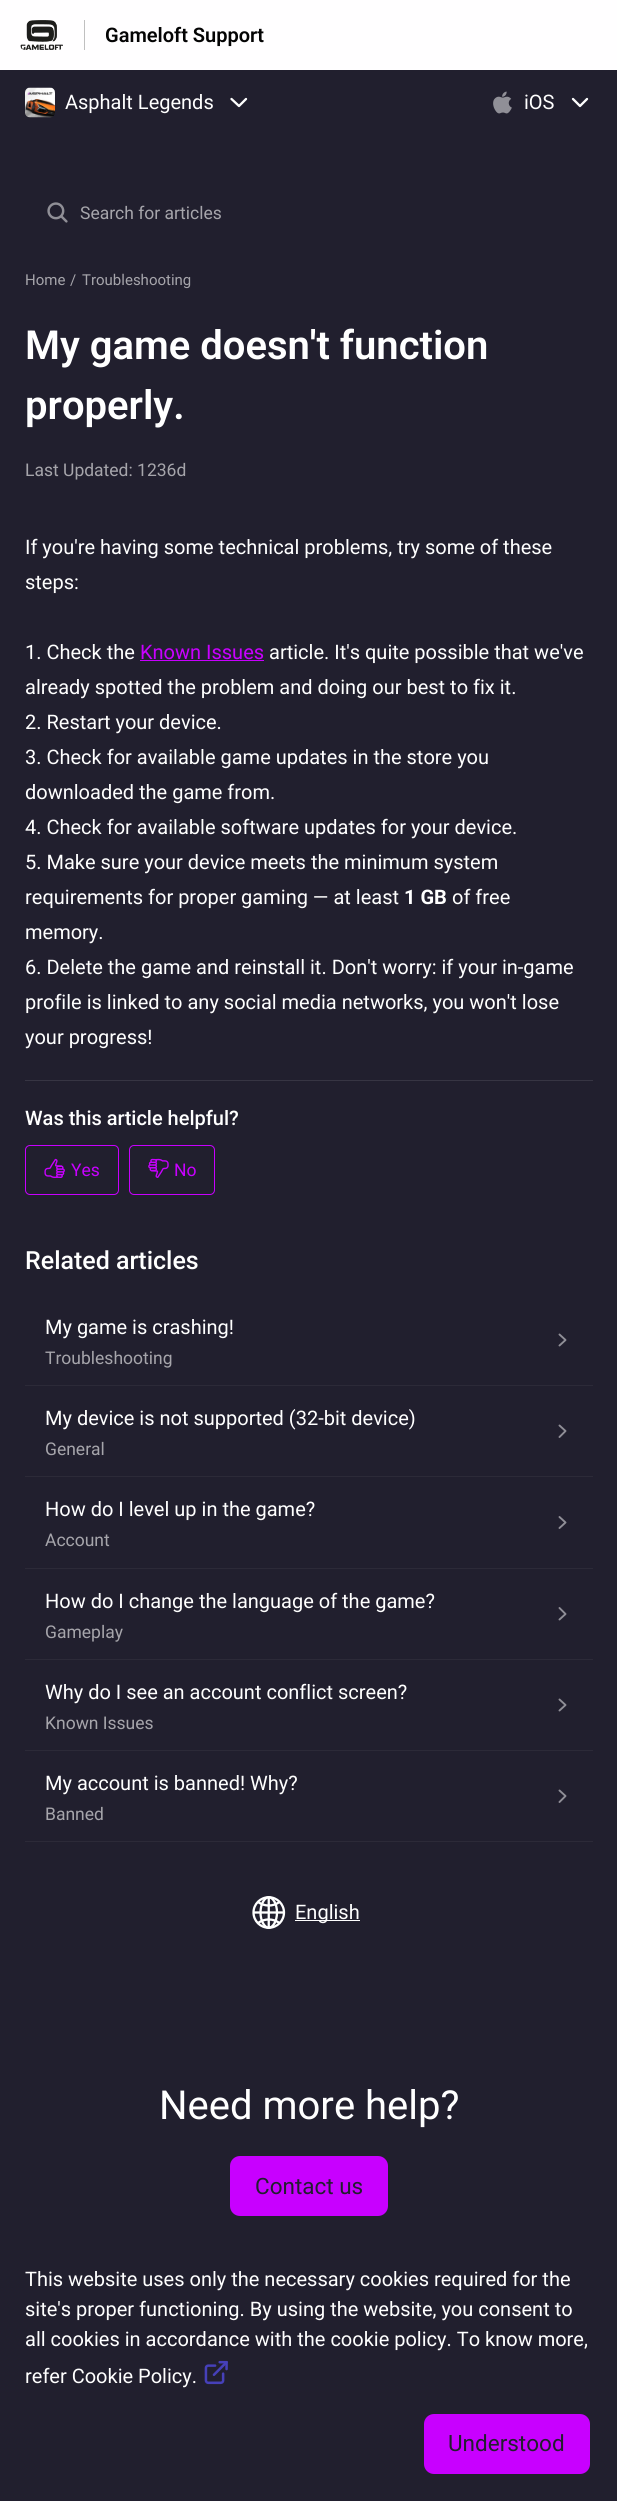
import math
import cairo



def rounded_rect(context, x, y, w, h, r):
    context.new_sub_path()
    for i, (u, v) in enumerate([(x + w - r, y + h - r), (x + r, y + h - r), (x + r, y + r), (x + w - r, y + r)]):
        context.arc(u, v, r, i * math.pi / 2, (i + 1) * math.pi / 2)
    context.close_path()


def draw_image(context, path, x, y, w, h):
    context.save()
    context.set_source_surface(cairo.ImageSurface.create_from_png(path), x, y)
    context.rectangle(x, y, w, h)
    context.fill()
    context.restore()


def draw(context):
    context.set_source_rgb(33 / 255, 31 / 255, 46 / 255)
    context.paint()
    context.set_source_rgb(1, 254 / 255, 1)
    context.rectangle(0, 0, 617, 70)
    context.fill()
    context.set_source_rgb(192 / 255, 192 / 255, 192 / 255)
    context.rectangle(84, 20, 1, 30)
    context.fill()
    draw_image(context, "images/1.png", 20, 20, 43, 30)
    draw_image(context, "images/2.png", 25, 87, 30, 31)
    context.new_path()
    context.move_to(231.5, 99)
    context.line_to(239, 106)
    context.line_to(246, 99)
    context.set_source_rgb(1, 1, 1)
    context.set_line_width(2.3)
    context.set_line_cap(cairo.LineCap.ROUND)
    context.set_line_join(cairo.LineJoin.ROUND)
    context.stroke()
    draw_image(context, "images/3.png", 493, 91, 19, 23)
    context.new_path()
    context.move_to(573, 99)
    context.line_to(580, 106)
    context.line_to(587, 99)
    context.stroke()
    draw_image(context, "images/4.png", 47, 202, 21, 21)
    context.set_source_rgb(55 / 255, 53 / 255, 67 / 255)
    context.rectangle(25, 1080, 568, 1)
    context.fill()
    context.set_source_rgb(200 / 255, 0, 1)
    context.rectangle(140, 660, 124, 1)
    context.fill()
    rounded_rect(context, 25.5, 1145.5, 93, 49, 4.5)
    context.set_line_width(1)
    context.set_line_cap(cairo.LineCap.BUTT)
    context.set_line_join(cairo.LineJoin.MITER)
    context.stroke()
    draw_image(context, "images/5.png", 44, 1158, 21, 20)
    rounded_rect(context, 129.5, 1145.5, 85, 49, 4.5)
    context.stroke()
    draw_image(context, "images/6.png", 148, 1158, 21, 20)
    context.set_source_rgb(44 / 255, 42 / 255, 56 / 255)
    context.rectangle(25, 1385, 568, 1)
    context.fill()
    context.new_path()
    context.move_to(559.5, 1334.5)
    context.line_to(565.5, 1340)
    context.line_to(559.5, 1345.5)
    context.set_source_rgb(144 / 255, 143 / 255, 151 / 255)
    context.set_line_width(1.9)
    context.set_line_cap(cairo.LineCap.ROUND)
    context.set_line_join(cairo.LineJoin.ROUND)
    context.stroke()
    context.set_source_rgb(44 / 255, 42 / 255, 56 / 255)
    context.rectangle(25, 1476, 568, 1)
    context.fill()
    context.new_path()
    context.move_to(559.5, 1425.5)
    context.line_to(565.5, 1431)
    context.line_to(559.5, 1437)
    context.set_source_rgb(144 / 255, 143 / 255, 151 / 255)
    context.stroke()
    context.set_source_rgb(44 / 255, 42 / 255, 56 / 255)
    context.rectangle(25, 1568, 568, 1)
    context.fill()
    context.new_path()
    context.move_to(559.5, 1517)
    context.line_to(565.5, 1522.5)
    context.line_to(559.5, 1528)
    context.set_source_rgb(144 / 255, 143 / 255, 151 / 255)
    context.stroke()
    context.set_source_rgb(44 / 255, 42 / 255, 56 / 255)
    context.rectangle(25, 1659, 568, 1)
    context.fill()
    context.new_path()
    context.move_to(559.5, 1608)
    context.line_to(565.5, 1614)
    context.line_to(559.5, 1619.5)
    context.set_source_rgb(144 / 255, 143 / 255, 151 / 255)
    context.stroke()
    context.set_source_rgb(44 / 255, 42 / 255, 56 / 255)
    context.rectangle(25, 1750, 568, 1)
    context.fill()
    context.new_path()
    context.move_to(559.5, 1699.5)
    context.line_to(565.5, 1705)
    context.line_to(559.5, 1710.5)
    context.set_source_rgb(144 / 255, 143 / 255, 151 / 255)
    context.stroke()
    context.set_source_rgb(44 / 255, 42 / 255, 56 / 255)
    context.rectangle(25, 1841, 568, 1)
    context.fill()
    context.new_path()
    context.move_to(559.5, 1790.5)
    context.line_to(565.5, 1796)
    context.line_to(559.5, 1802)
    context.set_source_rgb(144 / 255, 143 / 255, 151 / 255)
    context.stroke()
    draw_image(context, "images/7.png", 252, 1896, 34, 33)
    context.set_source_rgb(1, 1, 1)
    context.rectangle(295, 1920, 65, 1)
    context.fill()
    context.set_source_rgb(200 / 255, 0, 1)
    rounded_rect(context, 230, 2156, 158, 60, 10)
    context.fill()
    draw_image(context, "images/8.png", 204, 2360, 24, 25)
    rounded_rect(context, 424, 2414, 166, 60, 10)
    context.fill()
    context.select_font_face("Roboto SemiBold")
    context.set_font_size(20)
    context.set_source_rgb(4 / 255, 4 / 255, 4 / 255)
    context.move_to(105, 42)
    context.show_text("Gameloft Support")
    context.select_font_face("Roboto")
    context.set_source_rgb(1, 1, 1)
    context.move_to(65, 109)
    context.show_text("Asphalt Legends")
    context.move_to(524, 109)
    context.show_text("iOS")
    context.set_font_size(17.5)
    context.set_source_rgb(166 / 255, 165 / 255, 171 / 255)
    context.move_to(80, 219)
    context.show_text("Search for articles")
    context.set_font_size(15)
    context.move_to(25, 285)
    context.show_text("Home")
    context.move_to(70, 285)
    context.show_text("/")
    context.move_to(82, 285)
    context.show_text("Troubleshooting")
    context.select_font_face("Roboto SemiBold")
    context.set_font_size(40)
    context.set_source_rgb(1, 1, 1)
    context.move_to(25, 359)
    context.show_text("My game doesn't function")
    context.move_to(25, 419)
    context.show_text("properly.")
    context.select_font_face("Roboto")
    context.set_font_size(17.5)
    context.set_source_rgb(166 / 255, 165 / 255, 171 / 255)
    context.move_to(25, 476)
    context.show_text("Last Updated: 1236d")
    context.set_font_size(20)
    context.set_source_rgb(1, 1, 1)
    context.move_to(25, 554)
    context.show_text("If you're having some technical problems, try some of these")
    context.move_to(25, 589)
    context.show_text("steps:")
    context.move_to(25, 659)
    context.show_text("1. Check the")
    context.set_source_rgb(200 / 255, 0, 1)
    context.move_to(140, 659)
    context.show_text("Known Issues")
    context.set_source_rgb(1, 1, 1)
    context.move_to(269, 659)
    context.show_text("article. It's quite possible that we've")
    context.move_to(25, 694)
    context.show_text("already spotted the problem and doing our best to fix it.")
    context.move_to(25, 729)
    context.show_text("2. Restart your device.")
    context.move_to(25, 764)
    context.show_text("3. Check for available game updates in the store you")
    context.move_to(25, 799)
    context.show_text("downloaded the game from.")
    context.move_to(25, 834)
    context.show_text("4. Check for available software updates for your device.")
    context.move_to(25, 869)
    context.show_text("5. Make sure your device meets the minimum system")
    context.move_to(25, 904)
    context.show_text("requirements for proper gaming — at least")
    context.select_font_face("Roboto", cairo.FontSlant.NORMAL, cairo.FontWeight.BOLD)
    context.move_to(404, 904)
    context.show_text("1 GB")
    context.select_font_face("Roboto")
    context.move_to(452, 904)
    context.show_text("of free")
    context.move_to(25, 939)
    context.show_text("memory.")
    context.move_to(25, 974)
    context.show_text("6. Delete the game and reinstall it. Don't worry: if your in-game")
    context.move_to(25, 1009)
    context.show_text("profile is linked to any social media networks, you won't lose")
    context.move_to(25, 1044)
    context.show_text("your progress!")
    context.select_font_face("Roboto Medium")
    context.move_to(25, 1125)
    context.show_text("Was this article helpful?")
    context.select_font_face("Roboto")
    context.set_font_size(17.5)
    context.set_source_rgb(200 / 255, 0, 1)
    context.move_to(71, 1176)
    context.show_text("Yes")
    context.move_to(174, 1176)
    context.show_text("No")
    context.select_font_face("Roboto Medium")
    context.set_font_size(25)
    context.set_source_rgb(1, 1, 1)
    context.move_to(25, 1269)
    context.show_text("Related articles")
    context.select_font_face("Roboto")
    context.set_font_size(20)
    context.move_to(45, 1334)
    context.show_text("My game is crashing!")
    context.set_font_size(17.5)
    context.set_source_rgb(166 / 255, 165 / 255, 171 / 255)
    context.move_to(45, 1364)
    context.show_text("Troubleshooting")
    context.set_font_size(20)
    context.set_source_rgb(1, 1, 1)
    context.move_to(45, 1425)
    context.show_text("My device is not supported (32-bit device)")
    context.set_font_size(17.5)
    context.set_source_rgb(166 / 255, 165 / 255, 171 / 255)
    context.move_to(45, 1455)
    context.show_text("General")
    context.set_font_size(20)
    context.set_source_rgb(1, 1, 1)
    context.move_to(45, 1516)
    context.show_text("How do I level up in the game?")
    context.set_font_size(17.5)
    context.set_source_rgb(166 / 255, 165 / 255, 171 / 255)
    context.move_to(45, 1546)
    context.show_text("Account")
    context.set_font_size(20)
    context.set_source_rgb(1, 1, 1)
    context.move_to(45, 1608)
    context.show_text("How do I change the language of the game?")
    context.set_font_size(17.5)
    context.set_source_rgb(166 / 255, 165 / 255, 171 / 255)
    context.move_to(45, 1638)
    context.show_text("Gameplay")
    context.set_font_size(20)
    context.set_source_rgb(1, 1, 1)
    context.move_to(45, 1699)
    context.show_text("Why do I see an account conflict screen?")
    context.set_font_size(17.5)
    context.set_source_rgb(166 / 255, 165 / 255, 171 / 255)
    context.move_to(45, 1729)
    context.show_text("Known Issues")
    context.set_font_size(20)
    context.set_source_rgb(1, 1, 1)
    context.move_to(45, 1790)
    context.show_text("My account is banned! Why?")
    context.set_font_size(17.5)
    context.set_source_rgb(166 / 255, 165 / 255, 171 / 255)
    context.move_to(45, 1820)
    context.show_text("Banned")
    context.set_font_size(20)
    context.set_source_rgb(1, 1, 1)
    context.move_to(295, 1919)
    context.show_text("English")
    context.set_font_size(40)
    context.move_to(159, 2119)
    context.show_text("Need more help?")
    context.set_font_size(22.5)
    context.set_source_rgb(33 / 255, 31 / 255, 46 / 255)
    context.move_to(255, 2194)
    context.show_text("Contact us")
    context.set_font_size(20)
    context.set_source_rgb(1, 1, 1)
    context.move_to(25, 2286)
    context.show_text("This website uses only the necessary cookies required for the")
    context.move_to(25, 2316)
    context.show_text("site's proper functioning. By using the website, you consent to")
    context.move_to(25, 2346)
    context.show_text("all cookies in accordance with the cookie policy. To know more,")
    context.move_to(25, 2383)
    context.show_text("refer Cookie Policy.")
    context.set_font_size(22.5)
    context.set_source_rgb(33 / 255, 31 / 255, 46 / 255)
    context.move_to(448, 2451)
    context.show_text("Understood")


surface = cairo.ImageSurface(cairo.Format.RGB24, 617, 2501)
context = cairo.Context(surface)
options = cairo.FontOptions()
options.set_hint_metrics(cairo.HintMetrics.OFF)
options.set_hint_style(cairo.HintStyle.NONE)
context.set_font_options(options)
context.set_miter_limit(4)
draw(context)
surface.write_to_png("out.png")
